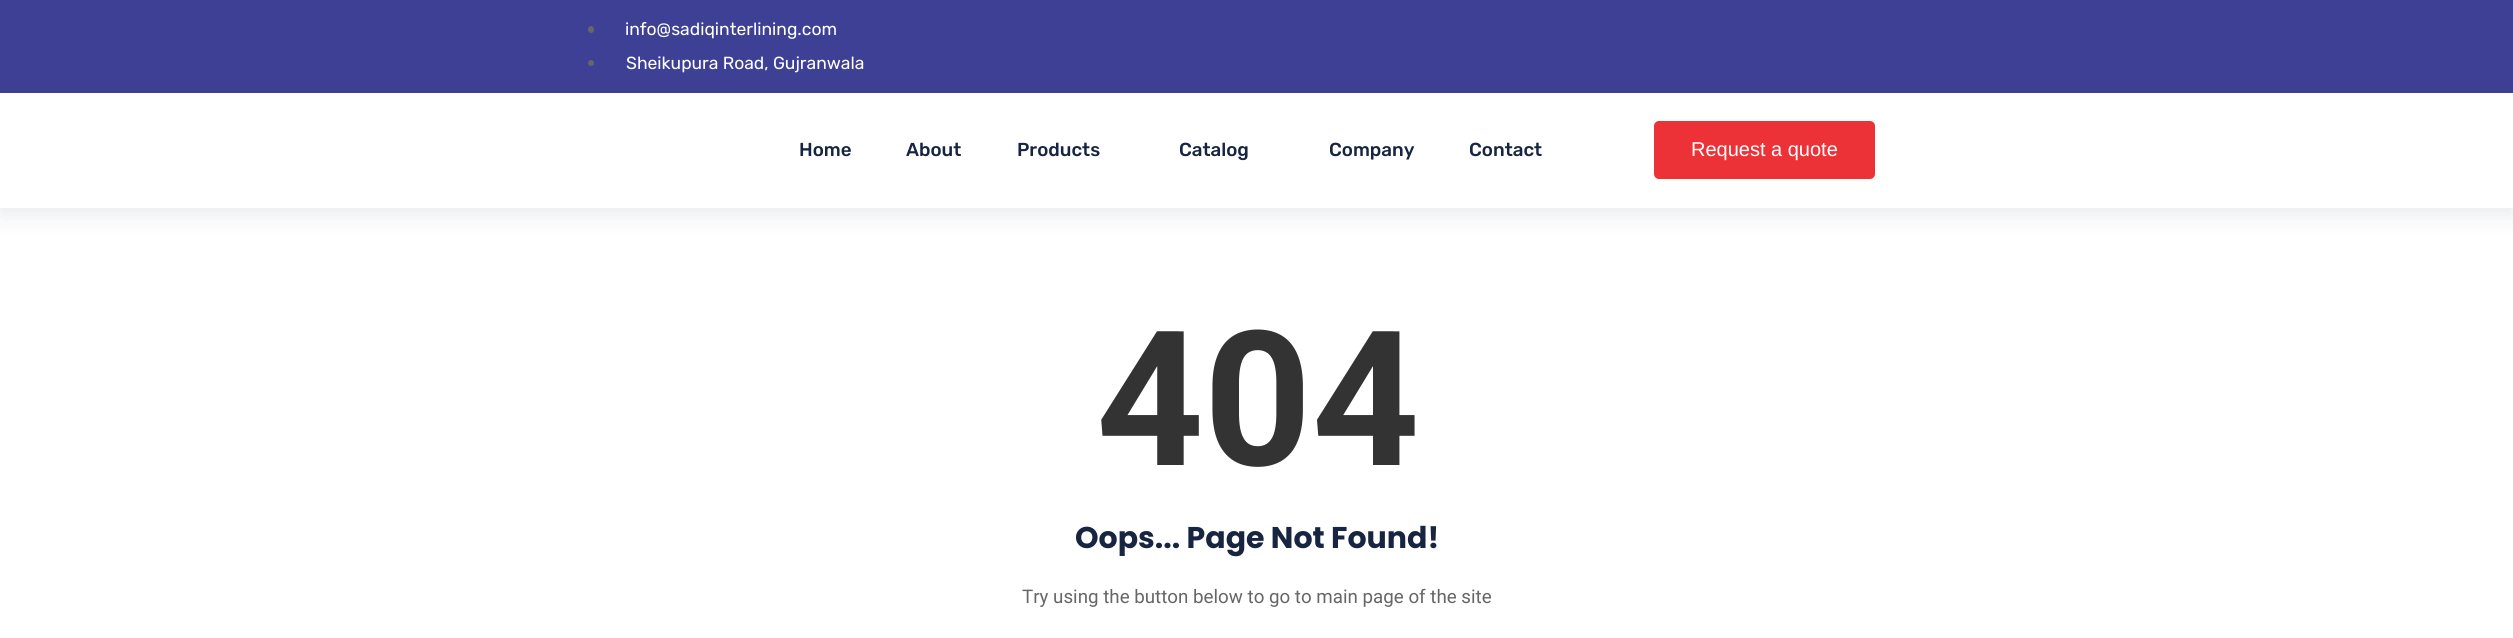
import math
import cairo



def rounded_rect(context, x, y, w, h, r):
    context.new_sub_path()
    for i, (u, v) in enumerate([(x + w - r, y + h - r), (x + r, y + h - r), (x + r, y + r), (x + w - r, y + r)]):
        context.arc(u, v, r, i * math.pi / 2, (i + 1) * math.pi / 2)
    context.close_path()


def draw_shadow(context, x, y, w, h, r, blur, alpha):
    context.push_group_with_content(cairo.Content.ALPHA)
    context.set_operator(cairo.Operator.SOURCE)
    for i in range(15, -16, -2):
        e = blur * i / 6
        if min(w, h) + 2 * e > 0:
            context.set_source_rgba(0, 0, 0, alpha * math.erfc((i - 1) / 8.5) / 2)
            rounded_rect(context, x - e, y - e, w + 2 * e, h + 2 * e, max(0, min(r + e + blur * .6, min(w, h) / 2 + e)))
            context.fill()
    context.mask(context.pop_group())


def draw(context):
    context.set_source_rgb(1, 1, 1)
    context.paint()
    context.set_source_rgb(62 / 255, 64 / 255, 149 / 255)
    context.rectangle(0, 0, 2513, 93)
    context.fill()
    context.set_source_rgb(102 / 255, 102 / 255, 102 / 255)
    rounded_rect(context, 588, 26, 6, 7, 3)
    context.fill()
    context.arc(591, 63, 3, 0, 2 * math.pi)
    context.fill()
    context.set_source_rgb(7 / 255, 25 / 255, 60 / 255)
    draw_shadow(context, 0, 99, 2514, 115, 0, 12.5, 0.1)
    context.set_source_rgb(1, 1, 1)
    context.rectangle(0, 93, 2513, 115)
    context.fill()
    context.set_source_rgb(237 / 255, 50 / 255, 55 / 255)
    rounded_rect(context, 1654, 121, 221, 58, 5)
    context.fill()
    context.select_font_face("Rubik")
    context.set_font_size(17.5)
    context.set_source_rgb(1, 1, 1)
    context.move_to(625, 35)
    context.show_text("info@sadiqinterlining.com")
    context.move_to(626, 69)
    context.show_text("Sheikupura Road, Gujranwala")
    context.select_font_face("Rubik Medium")
    context.set_font_size(18.75)
    context.set_source_rgb(23 / 255, 37 / 255, 65 / 255)
    context.move_to(799, 156)
    context.show_text("Home")
    context.move_to(906, 156)
    context.show_text("About")
    context.move_to(1017, 156)
    context.show_text("Products")
    context.move_to(1179, 156)
    context.show_text("Catalog")
    context.move_to(1329, 156)
    context.show_text("Company")
    context.move_to(1469, 156)
    context.show_text("Contact")
    context.select_font_face("Liberation Sans")
    context.set_font_size(20)
    context.set_source_rgb(1, 1, 1)
    context.move_to(1691, 156)
    context.show_text("Request a quote")
    context.select_font_face("Roboto", cairo.FontSlant.NORMAL, cairo.FontWeight.BOLD)
    context.set_font_size(188)
    context.set_source_rgb(51 / 255, 51 / 255, 51 / 255)
    context.move_to(1096, 465)
    context.show_text("404")
    context.select_font_face("Poppins", cairo.FontSlant.NORMAL, cairo.FontWeight.BOLD)
    context.set_font_size(30)
    context.set_source_rgb(23 / 255, 37 / 255, 65 / 255)
    context.move_to(1075, 548)
    context.show_text("Oops... Page Not Found!")
    context.select_font_face("Roboto")
    context.set_font_size(18.75)
    context.set_source_rgb(102 / 255, 102 / 255, 102 / 255)
    context.move_to(1022, 603)
    context.show_text("Try using the button below to go to main page of the site")


surface = cairo.ImageSurface(cairo.Format.RGB24, 2513, 638)
context = cairo.Context(surface)
options = cairo.FontOptions()
options.set_hint_metrics(cairo.HintMetrics.OFF)
options.set_hint_style(cairo.HintStyle.NONE)
context.set_font_options(options)
context.set_miter_limit(4)
draw(context)
surface.write_to_png("out.png")
